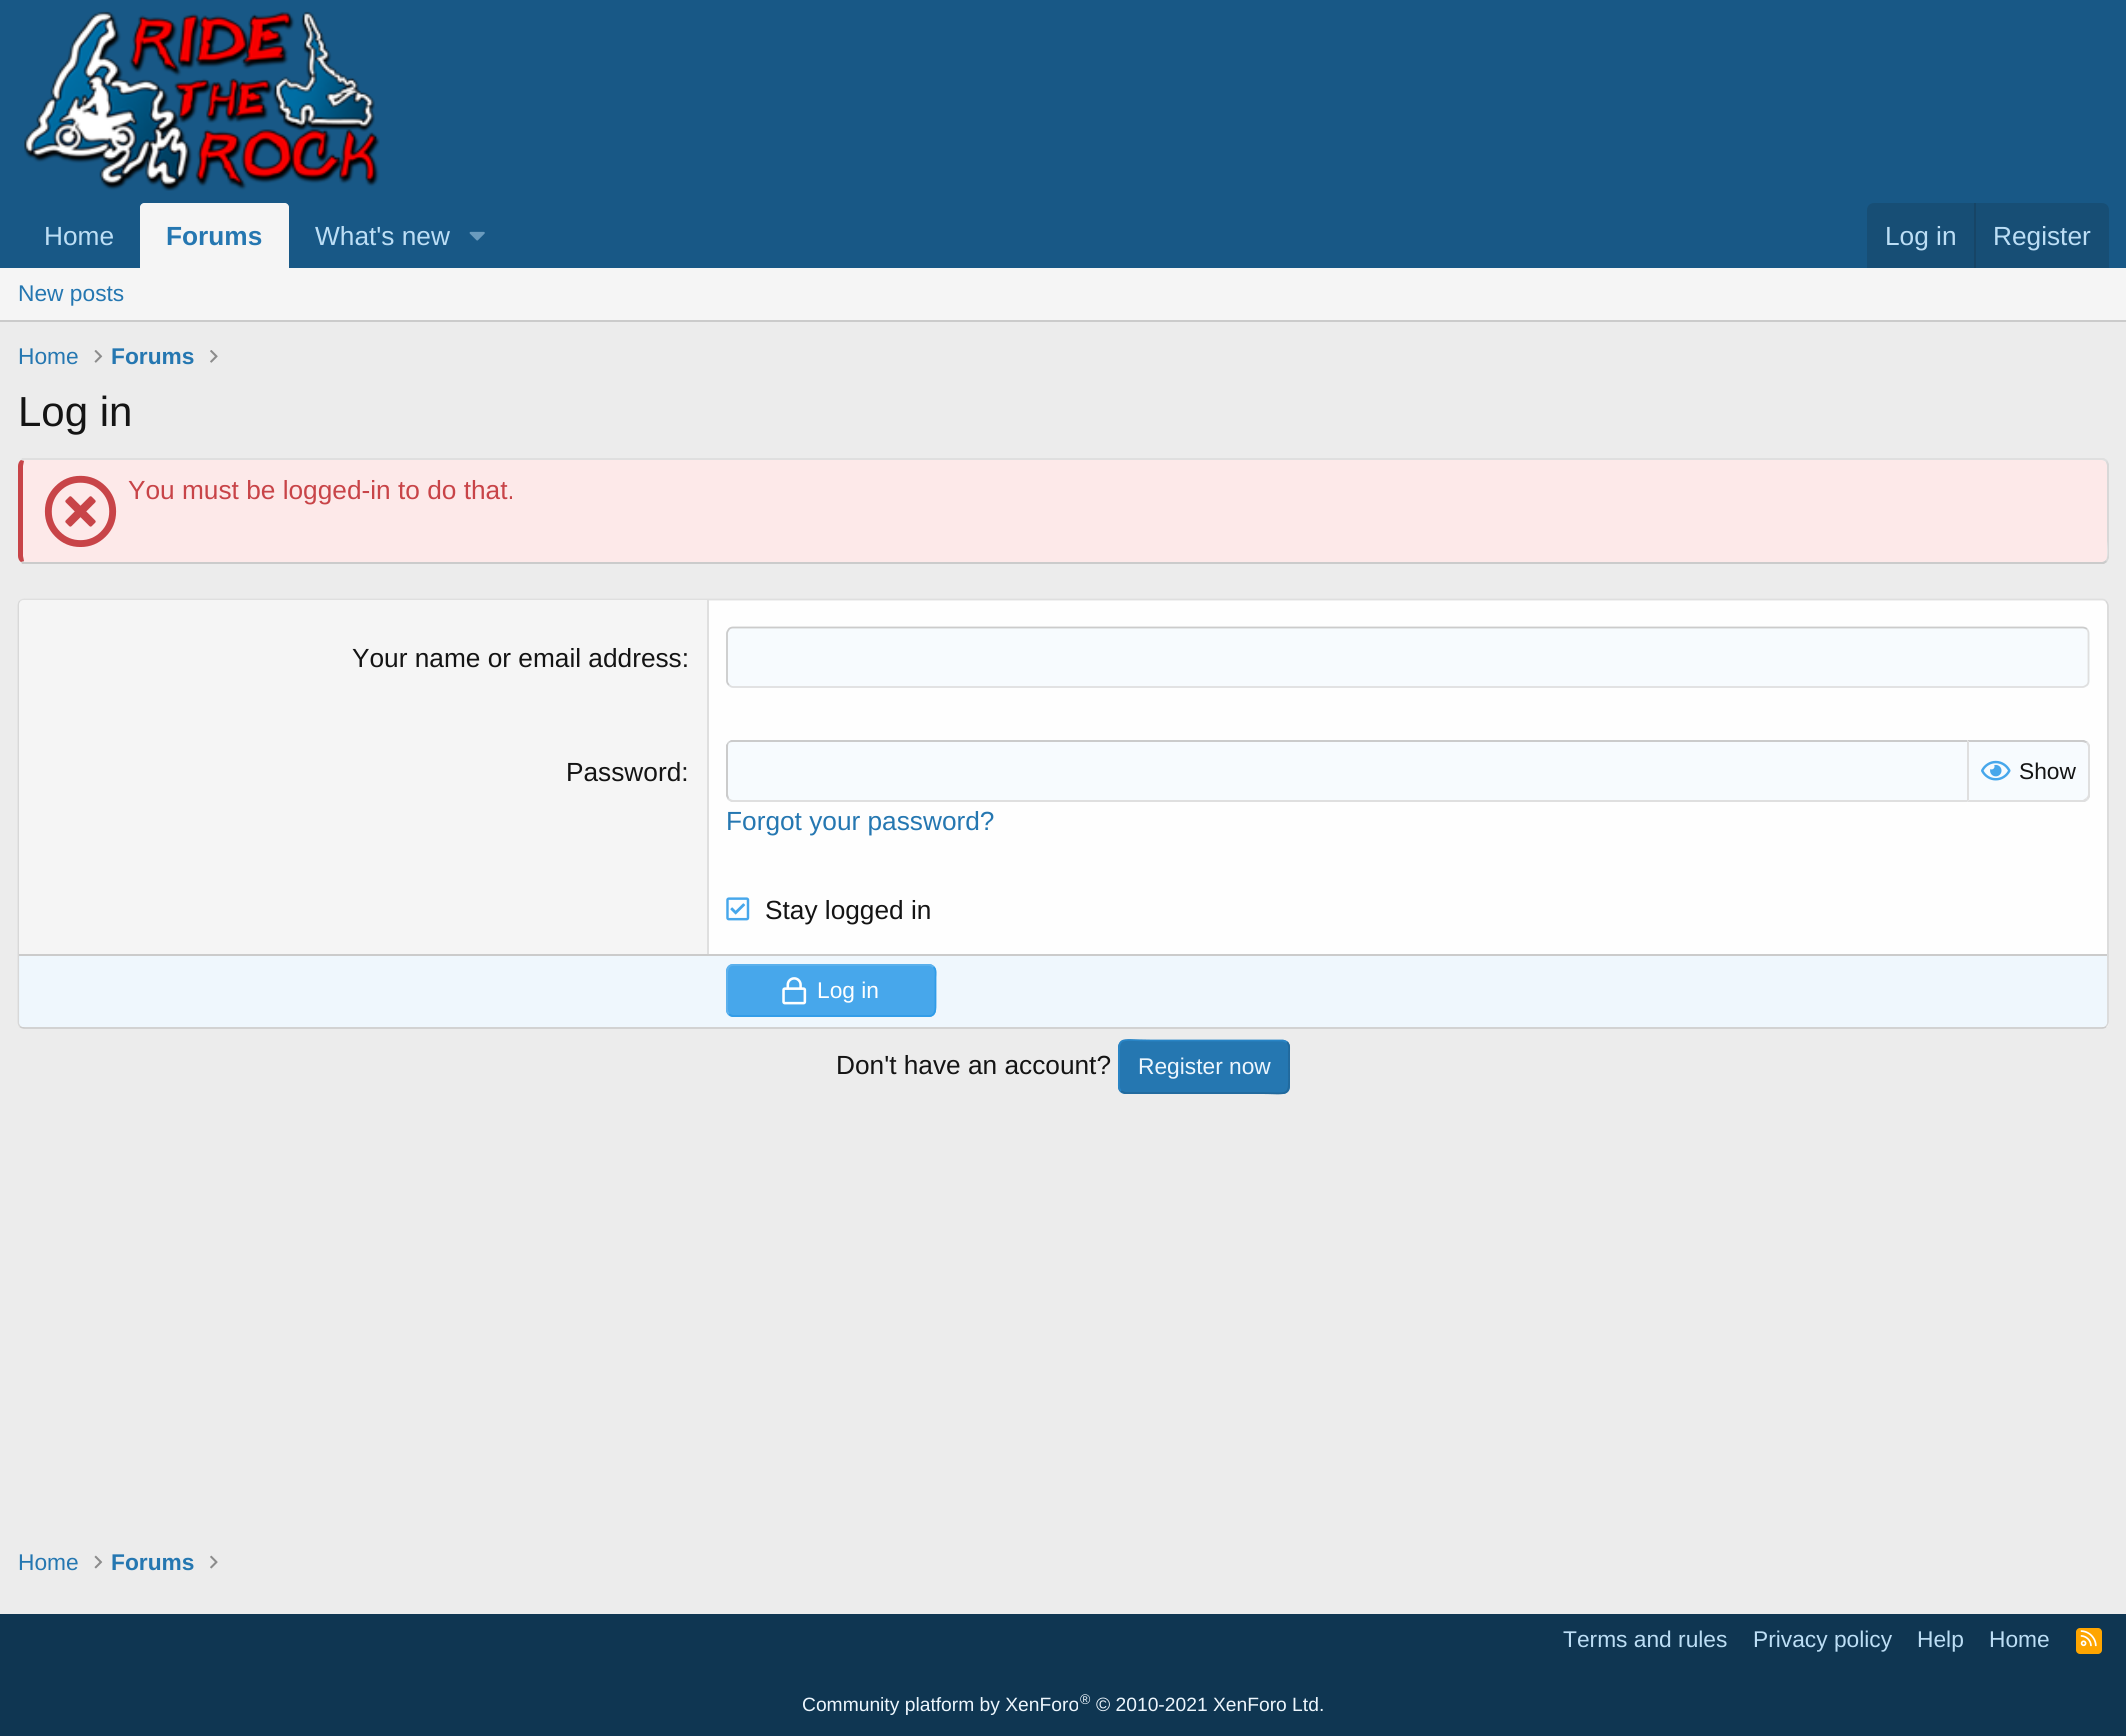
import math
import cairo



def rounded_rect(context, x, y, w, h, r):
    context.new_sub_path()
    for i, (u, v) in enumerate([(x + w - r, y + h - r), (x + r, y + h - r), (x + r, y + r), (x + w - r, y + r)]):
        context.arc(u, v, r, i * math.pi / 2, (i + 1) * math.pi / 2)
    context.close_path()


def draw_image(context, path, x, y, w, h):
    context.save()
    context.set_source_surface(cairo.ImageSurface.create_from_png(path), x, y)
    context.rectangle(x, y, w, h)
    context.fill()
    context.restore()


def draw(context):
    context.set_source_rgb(236 / 255, 236 / 255, 236 / 255)
    context.paint()
    context.set_source_rgb(24 / 255, 88 / 255, 134 / 255)
    context.rectangle(0, 0, 2126, 268)
    context.fill()
    draw_image(context, "images/1.png", 24, 11, 356, 180)
    context.set_source_rgb(245 / 255, 245 / 255, 245 / 255)
    context.new_path()
    context.move_to(144, 203)
    context.line_to(285, 203)
    context.curve_to(287, 203, 289, 205, 289, 207)
    context.line_to(289, 268)
    context.line_to(140, 268)
    context.line_to(140, 207)
    context.curve_to(140, 205, 142, 203, 144, 203)
    context.close_path()
    context.fill()
    draw_image(context, "images/2.png", 469, 231, 16, 10)
    context.set_source_rgb(23 / 255, 78 / 255, 117 / 255)
    context.new_path()
    context.move_to(1874, 203)
    context.line_to(2102, 203)
    context.curve_to(2106, 203, 2109, 206, 2109, 210)
    context.line_to(2109, 268)
    context.line_to(1867, 268)
    context.line_to(1867, 210)
    context.curve_to(1867, 206, 1870, 203, 1874, 203)
    context.close_path()
    context.fill()
    context.set_source_rgb(23 / 255, 69 / 255, 102 / 255)
    context.rectangle(1974, 203, 2, 65)
    context.fill()
    context.set_source_rgb(245 / 255, 245 / 255, 245 / 255)
    context.rectangle(0, 268, 2126, 52)
    context.fill()
    context.set_source_rgb(203 / 255, 203 / 255, 203 / 255)
    context.rectangle(0, 320, 2126, 2)
    context.fill()
    draw_image(context, "images/3.png", 94, 350, 9, 13)
    draw_image(context, "images/4.png", 210, 350, 8, 13)
    context.set_source_rgb(253 / 255, 233 / 255, 233 / 255)
    context.new_path()
    context.move_to(24, 460)
    context.line_to(2102, 460)
    context.curve_to(2105, 460, 2107, 463, 2107, 466)
    context.line_to(2107, 556)
    context.curve_to(2107, 559, 2105, 562, 2102, 562)
    context.line_to(24, 562)
    context.curve_to(24, 562, 23, 559, 23, 556)
    context.line_to(23, 466)
    context.curve_to(23, 463, 24, 460, 24, 460)
    context.close_path()
    context.fill()
    context.set_source_rgb(223 / 255, 223 / 255, 223 / 255)
    context.new_path()
    context.move_to(24, 460)
    context.line_to(24, 461)
    context.line_to(21, 460)
    context.line_to(22, 458)
    context.line_to(2104, 458)
    context.line_to(2107, 460)
    context.line_to(2106, 462)
    context.curve_to(2105, 461, 2103, 460, 2102, 460)
    context.close_path()
    context.fill()
    context.set_source_rgb(216 / 255, 216 / 255, 216 / 255)
    context.new_path()
    context.move_to(2109, 558)
    context.line_to(2107, 562)
    context.line_to(2106, 560)
    context.curve_to(2109, 556, 2107, 542, 2107, 541)
    context.line_to(2107, 465)
    context.line_to(2106, 462)
    context.line_to(2107, 460)
    context.line_to(2109, 464)
    context.close_path()
    context.fill()
    context.set_source_rgb(203 / 255, 203 / 255, 203 / 255)
    context.new_path()
    context.move_to(22, 564)
    context.line_to(21, 562)
    context.line_to(24, 561)
    context.line_to(24, 562)
    context.line_to(2102, 562)
    context.curve_to(2103, 562, 2105, 561, 2106, 560)
    context.line_to(2107, 562)
    context.line_to(2104, 564)
    context.close_path()
    context.fill()
    context.set_source_rgb(200 / 255, 68 / 255, 72 / 255)
    context.new_path()
    context.move_to(21, 562)
    context.curve_to(19, 561, 18, 558, 18, 556)
    context.line_to(18, 466)
    context.curve_to(18, 464, 19, 461, 21, 460)
    context.line_to(24, 461)
    context.line_to(23, 466)
    context.line_to(23, 556)
    context.line_to(24, 561)
    context.close_path()
    context.fill()
    draw_image(context, "images/5.png", 44, 475, 73, 72)
    context.set_source_rgb(254 / 255, 254 / 255, 254 / 255)
    rounded_rect(context, 18, 599, 2091, 430, 7)
    context.fill()
    context.new_path()
    context.move_to(20, 601)
    context.curve_to(21.5, 600, 23, 599.5, 24.5, 599.5)
    context.line_to(2102, 599.5)
    context.curve_to(2103.5, 599.5, 2105, 600, 2106, 601)
    context.set_source_rgb(223 / 255, 223 / 255, 223 / 255)
    context.set_line_width(1.8)
    context.stroke()
    context.new_path()
    context.move_to(2106, 601)
    context.curve_to(2107, 602.5, 2108, 604, 2108, 605.5)
    context.line_to(2108, 1022)
    context.curve_to(2108, 1023.5, 2107, 1025, 2106, 1026.5)
    context.set_source_rgb(216 / 255, 216 / 255, 216 / 255)
    context.stroke()
    context.new_path()
    context.move_to(2106, 1026.5)
    context.curve_to(2105, 1027.5, 2103.5, 1028, 2102, 1028)
    context.line_to(24.5, 1028)
    context.curve_to(23, 1028, 21.5, 1027.5, 20, 1026.5)
    context.set_source_rgb(203 / 255, 203 / 255, 203 / 255)
    context.stroke()
    context.new_path()
    context.move_to(20, 1026.5)
    context.curve_to(19, 1025, 18.5, 1023.5, 18.5, 1022)
    context.line_to(18.5, 605.5)
    context.curve_to(18.5, 604, 19, 602.5, 20, 601)
    context.set_source_rgb(216 / 255, 216 / 255, 216 / 255)
    context.stroke()
    context.set_source_rgb(245 / 255, 245 / 255, 245 / 255)
    context.new_path()
    context.move_to(24, 600)
    context.line_to(709, 600)
    context.line_to(709, 714)
    context.line_to(19, 714)
    context.line_to(19, 605)
    context.curve_to(19, 602, 21, 600, 24, 600)
    context.close_path()
    context.fill()
    context.set_source_rgb(223 / 255, 223 / 255, 223 / 255)
    context.rectangle(707, 600, 2, 354)
    context.fill()
    context.set_source_rgb(247 / 255, 251 / 255, 254 / 255)
    rounded_rect(context, 726, 627, 1364, 61, 7)
    context.fill()
    context.new_path()
    context.move_to(2087, 629)
    context.curve_to(2088, 630.5, 2088.5, 632, 2088.5, 633.5)
    context.line_to(2088.5, 681)
    context.curve_to(2088.5, 682.5, 2088, 684, 2087, 685)
    context.curve_to(2085.5, 686, 2084, 687, 2082.5, 687)
    context.line_to(733, 687)
    context.curve_to(731.5, 687, 730, 686, 729, 685)
    context.set_source_rgb(223 / 255, 223 / 255, 223 / 255)
    context.stroke()
    context.new_path()
    context.move_to(729, 685)
    context.curve_to(728, 684, 727, 682.5, 727, 681)
    context.line_to(727, 633.5)
    context.curve_to(727, 632, 728, 630.5, 729, 629)
    context.curve_to(730, 628, 731.5, 627.5, 733, 627.5)
    context.line_to(2082.5, 627.5)
    context.curve_to(2084, 627.5, 2085.5, 628, 2087, 629)
    context.set_source_rgb(203 / 255, 203 / 255, 203 / 255)
    context.stroke()
    context.set_source_rgb(245 / 255, 245 / 255, 245 / 255)
    context.rectangle(19, 714, 688, 240)
    context.fill()
    context.set_source_rgb(247 / 255, 251 / 255, 254 / 255)
    context.new_path()
    context.move_to(733, 740)
    context.line_to(1967, 740)
    context.line_to(1967, 802)
    context.line_to(733, 802)
    context.curve_to(729, 802, 726, 799, 726, 795)
    context.line_to(726, 747)
    context.curve_to(726, 743, 729, 740, 733, 740)
    context.close_path()
    context.fill()
    context.set_source_rgb(203 / 255, 203 / 255, 203 / 255)
    context.new_path()
    context.move_to(733, 742)
    context.curve_to(732, 742, 730, 742, 729, 743)
    context.line_to(728, 742)
    context.line_to(731, 740)
    context.line_to(1967, 740)
    context.line_to(1967, 742)
    context.close_path()
    context.fill()
    context.set_source_rgb(223 / 255, 223 / 255, 223 / 255)
    context.new_path()
    context.move_to(1967, 802)
    context.line_to(731, 802)
    context.line_to(728, 800)
    context.line_to(729, 798)
    context.curve_to(730, 799, 732, 800, 733, 800)
    context.line_to(1967, 800)
    context.close_path()
    context.fill()
    context.set_source_rgb(203 / 255, 203 / 255, 203 / 255)
    context.new_path()
    context.move_to(726, 745)
    context.line_to(728, 742)
    context.line_to(729, 743)
    context.curve_to(728, 744, 728, 746, 728, 747)
    context.line_to(728, 794)
    context.curve_to(728, 796, 729, 797, 729, 798)
    context.line_to(728, 800)
    context.line_to(726, 796)
    context.close_path()
    context.fill()
    context.set_source_rgb(247 / 255, 251 / 255, 254 / 255)
    context.new_path()
    context.move_to(1967, 740)
    context.line_to(2083, 740)
    context.curve_to(2087, 740, 2090, 743, 2090, 747)
    context.line_to(2090, 795)
    context.curve_to(2090, 799, 2087, 802, 2083, 802)
    context.line_to(1967, 802)
    context.close_path()
    context.fill()
    context.set_source_rgb(203 / 255, 203 / 255, 203 / 255)
    context.new_path()
    context.move_to(1969, 742)
    context.line_to(1967, 740)
    context.line_to(2084, 740)
    context.line_to(2088, 742)
    context.line_to(2086, 743)
    context.curve_to(2085, 743, 2084, 742, 2082, 742)
    context.close_path()
    context.fill()
    context.set_source_rgb(223 / 255, 223 / 255, 223 / 255)
    context.new_path()
    context.move_to(2090, 797)
    context.line_to(2088, 800)
    context.line_to(2086, 798)
    context.curve_to(2087, 797, 2088, 796, 2088, 794)
    context.line_to(2088, 747)
    context.curve_to(2088, 746, 2087, 744, 2086, 743)
    context.line_to(2088, 742)
    context.line_to(2090, 745)
    context.close_path()
    context.fill()
    context.new_path()
    context.move_to(2085, 802)
    context.line_to(1967, 802)
    context.line_to(1969, 800)
    context.line_to(2083, 800)
    context.line_to(2086, 798)
    context.line_to(2088, 800)
    context.close_path()
    context.fill()
    context.new_path()
    context.move_to(1967, 802)
    context.line_to(1969, 800)
    context.line_to(1969, 742)
    context.line_to(1967, 740)
    context.close_path()
    context.fill()
    draw_image(context, "images/6.png", 1981, 760, 30, 21)
    draw_image(context, "images/7.png", 726, 897, 24, 24)
    context.set_source_rgba(237 / 255, 246 / 255, 253 / 255, 0.9)
    context.new_path()
    context.move_to(19, 954)
    context.line_to(2107, 954)
    context.line_to(2107, 1022)
    context.curve_to(2107, 1025, 2105, 1027, 2102, 1027)
    context.line_to(24, 1027)
    context.curve_to(21, 1027, 19, 1025, 19, 1022)
    context.close_path()
    context.fill()
    context.set_source_rgb(203 / 255, 203 / 255, 203 / 255)
    context.rectangle(19, 954, 2088, 2)
    context.fill()
    context.set_source_rgb(71 / 255, 167 / 255, 235 / 255)
    rounded_rect(context, 726, 964, 210, 53, 7)
    context.fill()
    context.new_path()
    context.move_to(933.5, 967)
    context.curve_to(936.5, 969.5, 935.5, 974.5, 935.5, 977.5)
    context.line_to(935.5, 1003.5)
    context.curve_to(935.5, 1008, 936, 1016, 929, 1016)
    context.line_to(732.5, 1016)
    context.curve_to(731, 1015.5, 730, 1015, 729, 1014)
    context.set_source_rgb(48 / 255, 156 / 255, 232 / 255)
    context.stroke()
    context.new_path()
    context.move_to(729, 1014)
    context.curve_to(726, 1011.5, 727, 1006.5, 727, 1003.5)
    context.line_to(727, 977.5)
    context.curve_to(727, 973, 726.5, 965, 733, 965)
    context.line_to(930, 965)
    context.curve_to(931.5, 965.5, 932.5, 966, 933.5, 967)
    context.set_source_rgb(94 / 255, 178 / 255, 237 / 255)
    context.stroke()
    draw_image(context, "images/8.png", 782, 977, 25, 28)
    context.set_source_rgb(37 / 255, 119 / 255, 177 / 255)
    rounded_rect(context, 1118, 1040, 172, 54, 7)
    context.fill()
    context.new_path()
    context.move_to(1287, 1042)
    context.curve_to(1290, 1045, 1289, 1050, 1289, 1053)
    context.line_to(1289, 1066.5)
    context.curve_to(1289, 1099, 1292.5, 1093, 1256.5, 1093)
    context.line_to(1125, 1093)
    context.line_to(1121, 1091)
    context.set_source_rgb(33 / 255, 105 / 255, 156 / 255)
    context.stroke()
    context.new_path()
    context.move_to(1121, 1091)
    context.curve_to(1118, 1088.5, 1119, 1083.5, 1119, 1080)
    context.line_to(1119, 1066.5)
    context.curve_to(1119, 1034, 1115.5, 1040.5, 1151.5, 1040.5)
    context.line_to(1283, 1040.5)
    context.line_to(1287, 1042)
    context.set_source_rgb(41 / 255, 133 / 255, 198 / 255)
    context.stroke()
    draw_image(context, "images/9.png", 94, 1555, 9, 14)
    draw_image(context, "images/10.png", 210, 1555, 8, 14)
    context.set_source_rgb(15 / 255, 54 / 255, 82 / 255)
    context.rectangle(0, 1614, 2126, 122)
    context.fill()
    context.set_source_rgb(1, 165 / 255, 0)
    rounded_rect(context, 2076, 1628, 26, 26, 4)
    context.fill()
    draw_image(context, "images/11.png", 2080, 1630, 17, 17)
    context.select_font_face("Liberation Sans")
    context.set_font_size(26.25)
    context.set_source_rgb(188 / 255, 222 / 255, 245 / 255)
    context.move_to(44, 245)
    context.show_text("Home")
    context.select_font_face("Liberation Sans", cairo.FontSlant.NORMAL, cairo.FontWeight.BOLD)
    context.set_source_rgb(37 / 255, 119 / 255, 177 / 255)
    context.move_to(166, 245)
    context.show_text("Forums")
    context.select_font_face("Liberation Sans")
    context.set_source_rgb(188 / 255, 222 / 255, 245 / 255)
    context.move_to(315, 245)
    context.show_text("What's new")
    context.move_to(1885, 245)
    context.show_text("Log in")
    context.move_to(1993, 245)
    context.show_text("Register")
    context.set_font_size(22.75)
    context.set_source_rgb(37 / 255, 119 / 255, 177 / 255)
    context.move_to(18, 301)
    context.show_text("New posts")
    context.move_to(18, 364)
    context.show_text("Home")
    context.select_font_face("Liberation Sans", cairo.FontSlant.NORMAL, cairo.FontWeight.BOLD)
    context.move_to(111, 364)
    context.show_text("Forums")
    context.select_font_face("Liberation Sans")
    context.set_font_size(42)
    context.set_source_rgb(20 / 255, 20 / 255, 20 / 255)
    context.move_to(18, 426)
    context.show_text("Log in")
    context.set_font_size(26.25)
    context.set_source_rgb(200 / 255, 68 / 255, 72 / 255)
    context.move_to(128, 499)
    context.show_text("You must be logged-in to do that.")
    context.set_source_rgb(20 / 255, 20 / 255, 20 / 255)
    context.move_to(352, 667)
    context.show_text("Your name or email address:")
    context.move_to(566, 781)
    context.show_text("Password:")
    context.set_font_size(22.75)
    context.move_to(2019, 779)
    context.show_text("Show")
    context.set_font_size(26.25)
    context.set_source_rgb(37 / 255, 119 / 255, 177 / 255)
    context.move_to(726, 830)
    context.show_text("Forgot your password?")
    context.set_source_rgb(20 / 255, 20 / 255, 20 / 255)
    context.move_to(765, 919)
    context.show_text("Stay logged in")
    context.set_font_size(22.75)
    context.set_source_rgb(1, 1, 1)
    context.move_to(817, 998)
    context.show_text("Log in")
    context.set_font_size(26.25)
    context.set_source_rgb(20 / 255, 20 / 255, 20 / 255)
    context.move_to(836, 1074)
    context.show_text("Don't have an account?")
    context.set_font_size(22.75)
    context.set_source_rgb(237 / 255, 246 / 255, 253 / 255)
    context.move_to(1138, 1074)
    context.show_text("Register now")
    context.set_source_rgb(37 / 255, 119 / 255, 177 / 255)
    context.move_to(18, 1570)
    context.show_text("Home")
    context.select_font_face("Liberation Sans", cairo.FontSlant.NORMAL, cairo.FontWeight.BOLD)
    context.move_to(111, 1570)
    context.show_text("Forums")
    context.select_font_face("Liberation Sans")
    context.set_source_rgb(188 / 255, 222 / 255, 245 / 255)
    context.move_to(1563, 1647)
    context.show_text("Terms and rules")
    context.move_to(1753, 1647)
    context.show_text("Privacy policy")
    context.move_to(1917, 1647)
    context.show_text("Help")
    context.move_to(1989, 1647)
    context.show_text("Home")
    context.set_font_size(19.25)
    context.set_source_rgb(237 / 255, 246 / 255, 253 / 255)
    context.move_to(802, 1711)
    context.show_text("Community platform by XenForo")
    context.set_font_size(14)
    context.move_to(1080, 1704)
    context.show_text("®")
    context.set_font_size(19.25)
    context.move_to(1096, 1711)
    context.show_text("© 2010-2021 XenForo Ltd.")


surface = cairo.ImageSurface(cairo.Format.RGB24, 2126, 1736)
context = cairo.Context(surface)
options = cairo.FontOptions()
options.set_hint_metrics(cairo.HintMetrics.OFF)
options.set_hint_style(cairo.HintStyle.NONE)
context.set_font_options(options)
context.set_miter_limit(4)
draw(context)
surface.write_to_png("out.png")
